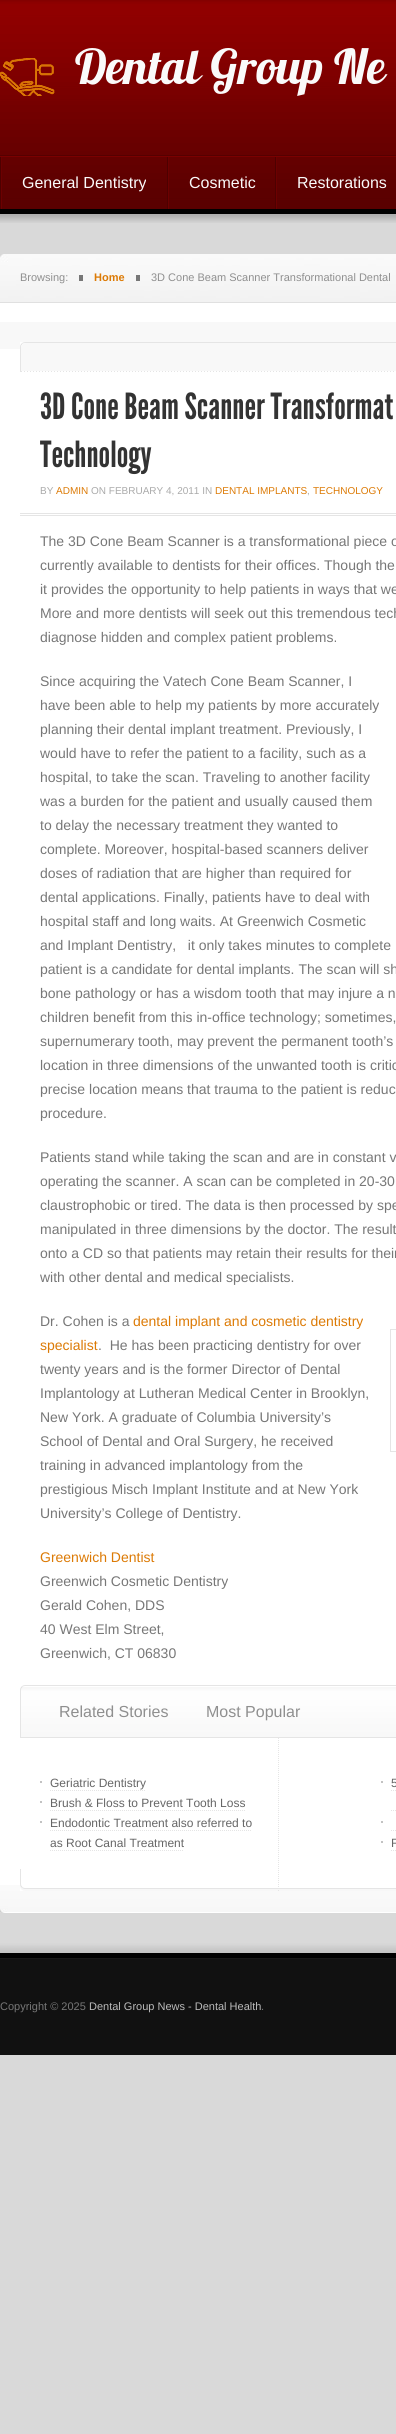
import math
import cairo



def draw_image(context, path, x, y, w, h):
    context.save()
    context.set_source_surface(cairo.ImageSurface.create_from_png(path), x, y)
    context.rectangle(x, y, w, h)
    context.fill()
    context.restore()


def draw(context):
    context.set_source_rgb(217 / 255, 217 / 255, 217 / 255)
    context.paint()
    draw_image(context, "images/1.png", 0, 0, 396, 155)
    draw_image(context, "images/2.png", 0, 58, 55, 38)
    draw_image(context, "images/3.png", 0, 155, 396, 68)
    draw_image(context, "images/4.png", 0, 157, 2, 52)
    draw_image(context, "images/4.png", 167, 157, 2, 52)
    draw_image(context, "images/4.png", 275, 157, 2, 52)
    context.set_source_rgb(1, 1, 1)
    context.rectangle(0, 303, 396, 1582)
    context.fill()
    draw_image(context, "images/5.png", 0, 1885, 396, 28)
    draw_image(context, "images/6.png", 0, 254, 396, 49)
    context.set_source_rgb(119 / 255, 119 / 255, 119 / 255)
    context.rectangle(79, 275, 4, 6)
    context.fill()
    context.rectangle(136, 275, 4, 6)
    context.fill()
    context.set_source_rgb(248 / 255, 248 / 255, 248 / 255)
    context.rectangle(0, 322, 396, 27)
    context.fill()
    draw_image(context, "images/7.png", 20, 342, 376, 30)
    context.set_source_rgb(229 / 255, 229 / 255, 229 / 255)
    context.rectangle(20, 513, 376, 1)
    context.fill()
    context.rectangle(20, 515, 376, 1)
    context.fill()
    context.rectangle(390.5, 1329.5, 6, 122)
    context.set_line_width(1)
    context.stroke()
    draw_image(context, "images/8.png", 20, 1869, 376, 22)
    draw_image(context, "images/9.png", 20, 1685, 376, 53)
    context.new_path()
    context.move_to(278.5, 1738)
    context.line_to(278.5, 1891)
    context.set_dash([1, 1])
    context.stroke()
    context.set_source_rgb(194 / 255, 194 / 255, 194 / 255)
    context.rectangle(40, 1781, 2, 2)
    context.fill()
    context.new_path()
    context.move_to(50, 1790.5)
    context.line_to(146, 1790.5)
    context.set_source_rgb(229 / 255, 229 / 255, 229 / 255)
    context.stroke()
    context.set_source_rgb(194 / 255, 194 / 255, 194 / 255)
    context.rectangle(40, 1801, 2, 2)
    context.fill()
    context.new_path()
    context.move_to(50, 1810.5)
    context.line_to(245, 1810.5)
    context.set_source_rgb(229 / 255, 229 / 255, 229 / 255)
    context.stroke()
    context.set_source_rgb(194 / 255, 194 / 255, 194 / 255)
    context.rectangle(40, 1821, 2, 2)
    context.fill()
    context.new_path()
    context.move_to(50, 1830.5)
    context.line_to(252, 1830.5)
    context.set_source_rgb(229 / 255, 229 / 255, 229 / 255)
    context.stroke()
    context.new_path()
    context.move_to(50, 1850.5)
    context.line_to(184, 1850.5)
    context.stroke()
    context.set_source_rgb(194 / 255, 194 / 255, 194 / 255)
    context.rectangle(381, 1781, 2, 2)
    context.fill()
    context.new_path()
    context.move_to(391, 1790.5)
    context.line_to(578, 1790.5)
    context.move_to(391, 1810.5)
    context.line_to(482, 1810.5)
    context.set_source_rgb(229 / 255, 229 / 255, 229 / 255)
    context.stroke()
    context.set_source_rgb(194 / 255, 194 / 255, 194 / 255)
    context.rectangle(381, 1821, 2, 2)
    context.fill()
    context.new_path()
    context.move_to(391, 1830.5)
    context.line_to(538, 1830.5)
    context.move_to(391, 1850.5)
    context.line_to(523, 1850.5)
    context.set_source_rgb(229 / 255, 229 / 255, 229 / 255)
    context.stroke()
    context.set_source_rgb(194 / 255, 194 / 255, 194 / 255)
    context.rectangle(381, 1841, 2, 2)
    context.fill()
    context.set_source_rgb(17 / 255, 17 / 255, 17 / 255)
    context.rectangle(0, 1959, 396, 96)
    context.fill()
    draw_image(context, "images/10.png", 0, 1943, 396, 16)
    context.select_font_face("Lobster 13")
    context.set_font_size(48)
    context.set_source_rgb(250 / 255, 250 / 255, 250 / 255)
    context.move_to(75, 84)
    context.show_text("Dental Group Ne")
    context.select_font_face("Liberation Sans")
    context.set_font_size(16)
    context.move_to(22, 188)
    context.show_text("General Dentistry")
    context.move_to(189, 188)
    context.show_text("Cosmetic")
    context.move_to(297, 188)
    context.show_text("Restorations")
    context.set_font_size(11)
    context.set_source_rgb(143 / 255, 143 / 255, 143 / 255)
    context.move_to(20, 281)
    context.show_text("Browsing:")
    context.select_font_face("Liberation Sans", cairo.FontSlant.NORMAL, cairo.FontWeight.BOLD)
    context.set_source_rgb(220 / 255, 122 / 255, 5 / 255)
    context.move_to(94, 281)
    context.show_text("Home")
    context.select_font_face("Liberation Sans")
    context.set_source_rgb(143 / 255, 143 / 255, 143 / 255)
    context.move_to(151, 281)
    context.show_text("3D Cone Beam Scanner Transformational Dental")
    context.select_font_face("League Gothic")
    context.set_font_size(36)
    context.set_source_rgb(51 / 255, 51 / 255, 51 / 255)
    context.move_to(40, 419)
    context.show_text("3D Cone Beam Scanner Transformat")
    context.move_to(40, 467)
    context.show_text("Technology")
    context.select_font_face("Liberation Sans")
    context.set_font_size(10)
    context.set_source_rgb(170 / 255, 170 / 255, 170 / 255)
    context.move_to(40, 494)
    context.show_text("BY")
    context.set_source_rgb(220 / 255, 122 / 255, 5 / 255)
    context.move_to(56, 494)
    context.show_text("ADMIN")
    context.set_source_rgb(170 / 255, 170 / 255, 170 / 255)
    context.move_to(91, 494)
    context.show_text("ON FEBRUARY 4, 2011 IN")
    context.set_source_rgb(220 / 255, 122 / 255, 5 / 255)
    context.move_to(215, 494)
    context.show_text("DENTAL IMPLANTS")
    context.set_source_rgb(170 / 255, 170 / 255, 170 / 255)
    context.move_to(307, 494)
    context.show_text(",")
    context.set_source_rgb(220 / 255, 122 / 255, 5 / 255)
    context.move_to(313, 494)
    context.show_text("TECHNOLOGY")
    context.set_font_size(14)
    context.set_source_rgb(119 / 255, 119 / 255, 119 / 255)
    context.move_to(40, 546)
    context.show_text("The 3D Cone Beam Scanner is a transformational piece o")
    context.move_to(40, 570)
    context.show_text("currently available to dentists for their offices. Though the")
    context.move_to(40, 594)
    context.show_text("it provides the opportunity to help patients in ways that we")
    context.move_to(40, 618)
    context.show_text("More and more dentists will seek out this tremendous tech")
    context.move_to(40, 642)
    context.show_text("diagnose hidden and complex patient problems.")
    context.move_to(40, 686)
    context.show_text("Since acquiring the Vatech Cone Beam Scanner, I")
    context.move_to(40, 710)
    context.show_text("have been able to help my patients by more accurately")
    context.move_to(40, 734)
    context.show_text("planning their dental implant treatment. Previously, I")
    context.move_to(40, 758)
    context.show_text("would have to refer the patient to a facility, such as a")
    context.move_to(40, 782)
    context.show_text("hospital, to take the scan. Traveling to another facility")
    context.move_to(40, 806)
    context.show_text("was a burden for the patient and usually caused them")
    context.move_to(40, 830)
    context.show_text("to delay the necessary treatment they wanted to")
    context.move_to(40, 854)
    context.show_text("complete. Moreover, hospital-based scanners deliver")
    context.move_to(40, 878)
    context.show_text("doses of radiation that are higher than required for")
    context.move_to(40, 902)
    context.show_text("dental applications. Finally, patients have to deal with")
    context.move_to(40, 926)
    context.show_text("hospital staff and long waits. At Greenwich Cosmetic")
    context.move_to(40, 950)
    context.show_text("and Implant Dentistry,   it only takes minutes to complete")
    context.move_to(40, 974)
    context.show_text("patient is a candidate for dental implants. The scan will sh")
    context.move_to(40, 998)
    context.show_text("bone pathology or has a wisdom tooth that may injure a n")
    context.move_to(40, 1022)
    context.show_text("children benefit from this in-office technology; sometimes,")
    context.move_to(40, 1046)
    context.show_text("supernumerary tooth, may prevent the permanent tooth’s")
    context.move_to(40, 1070)
    context.show_text("location in three dimensions of the unwanted tooth is critic")
    context.move_to(40, 1094)
    context.show_text("precise location means that trauma to the patient is reduc")
    context.move_to(40, 1118)
    context.show_text("procedure.")
    context.move_to(40, 1162)
    context.show_text("Patients stand while taking the scan and are in constant v")
    context.move_to(40, 1186)
    context.show_text("operating the scanner. A scan can be completed in 20-30")
    context.move_to(40, 1210)
    context.show_text("claustrophobic or tired. The data is then processed by spe")
    context.move_to(40, 1234)
    context.show_text("manipulated in three dimensions by the doctor. The result")
    context.move_to(40, 1258)
    context.show_text("onto a CD so that patients may retain their results for their")
    context.move_to(40, 1282)
    context.show_text("with other dental and medical specialists.")
    context.move_to(40, 1326)
    context.show_text("Dr. Cohen is a")
    context.set_source_rgb(220 / 255, 122 / 255, 5 / 255)
    context.move_to(133, 1326)
    context.show_text("dental implant and cosmetic dentistry")
    context.move_to(40, 1350)
    context.show_text("specialist")
    context.set_source_rgb(119 / 255, 119 / 255, 119 / 255)
    context.move_to(98, 1350)
    context.show_text(".  He has been practicing dentistry for over")
    context.move_to(40, 1374)
    context.show_text("twenty years and is the former Director of Dental")
    context.move_to(40, 1398)
    context.show_text("Implantology at Lutheran Medical Center in Brooklyn,")
    context.move_to(40, 1422)
    context.show_text("New York. A graduate of Columbia University’s")
    context.move_to(40, 1446)
    context.show_text("School of Dental and Oral Surgery, he received")
    context.move_to(40, 1470)
    context.show_text("training in advanced implantology from the")
    context.move_to(40, 1494)
    context.show_text("prestigious Misch Implant Institute and at New York")
    context.move_to(40, 1518)
    context.show_text("University’s College of Dentistry.")
    context.set_source_rgb(220 / 255, 122 / 255, 5 / 255)
    context.move_to(40, 1562)
    context.show_text("Greenwich Dentist")
    context.set_source_rgb(119 / 255, 119 / 255, 119 / 255)
    context.move_to(40, 1586)
    context.show_text("Greenwich Cosmetic Dentistry")
    context.move_to(40, 1610)
    context.show_text("Gerald Cohen, DDS")
    context.move_to(40, 1634)
    context.show_text("40 West Elm Street,")
    context.move_to(40, 1658)
    context.show_text("Greenwich, CT 06830")
    context.set_font_size(16)
    context.set_source_rgb(143 / 255, 143 / 255, 143 / 255)
    context.move_to(59, 1717)
    context.show_text("Related Stories")
    context.move_to(206, 1717)
    context.show_text("Most Popular")
    context.set_font_size(12)
    context.set_source_rgb(102 / 255, 102 / 255, 102 / 255)
    context.move_to(50, 1787)
    context.show_text("Geriatric Dentistry")
    context.move_to(50, 1807)
    context.show_text("Brush & Floss to Prevent Tooth Loss")
    context.move_to(50, 1827)
    context.show_text("Endodontic Treatment also referred to")
    context.move_to(50, 1847)
    context.show_text("as Root Canal Treatment")
    context.move_to(391, 1787)
    context.show_text("5")
    context.move_to(391, 1847)
    context.show_text("F")
    context.set_font_size(11)
    context.set_source_rgb(119 / 255, 119 / 255, 119 / 255)
    context.move_to(0, 2010)
    context.show_text("Copyright © 2025")
    context.set_source_rgb(187 / 255, 187 / 255, 187 / 255)
    context.move_to(89, 2010)
    context.show_text("Dental Group News - Dental Health")
    context.set_source_rgb(119 / 255, 119 / 255, 119 / 255)
    context.move_to(261, 2010)
    context.show_text(".")


surface = cairo.ImageSurface(cairo.Format.RGB24, 396, 2434)
context = cairo.Context(surface)
options = cairo.FontOptions()
options.set_hint_metrics(cairo.HintMetrics.OFF)
options.set_hint_style(cairo.HintStyle.NONE)
context.set_font_options(options)
context.set_miter_limit(4)
draw(context)
surface.write_to_png("out.png")
